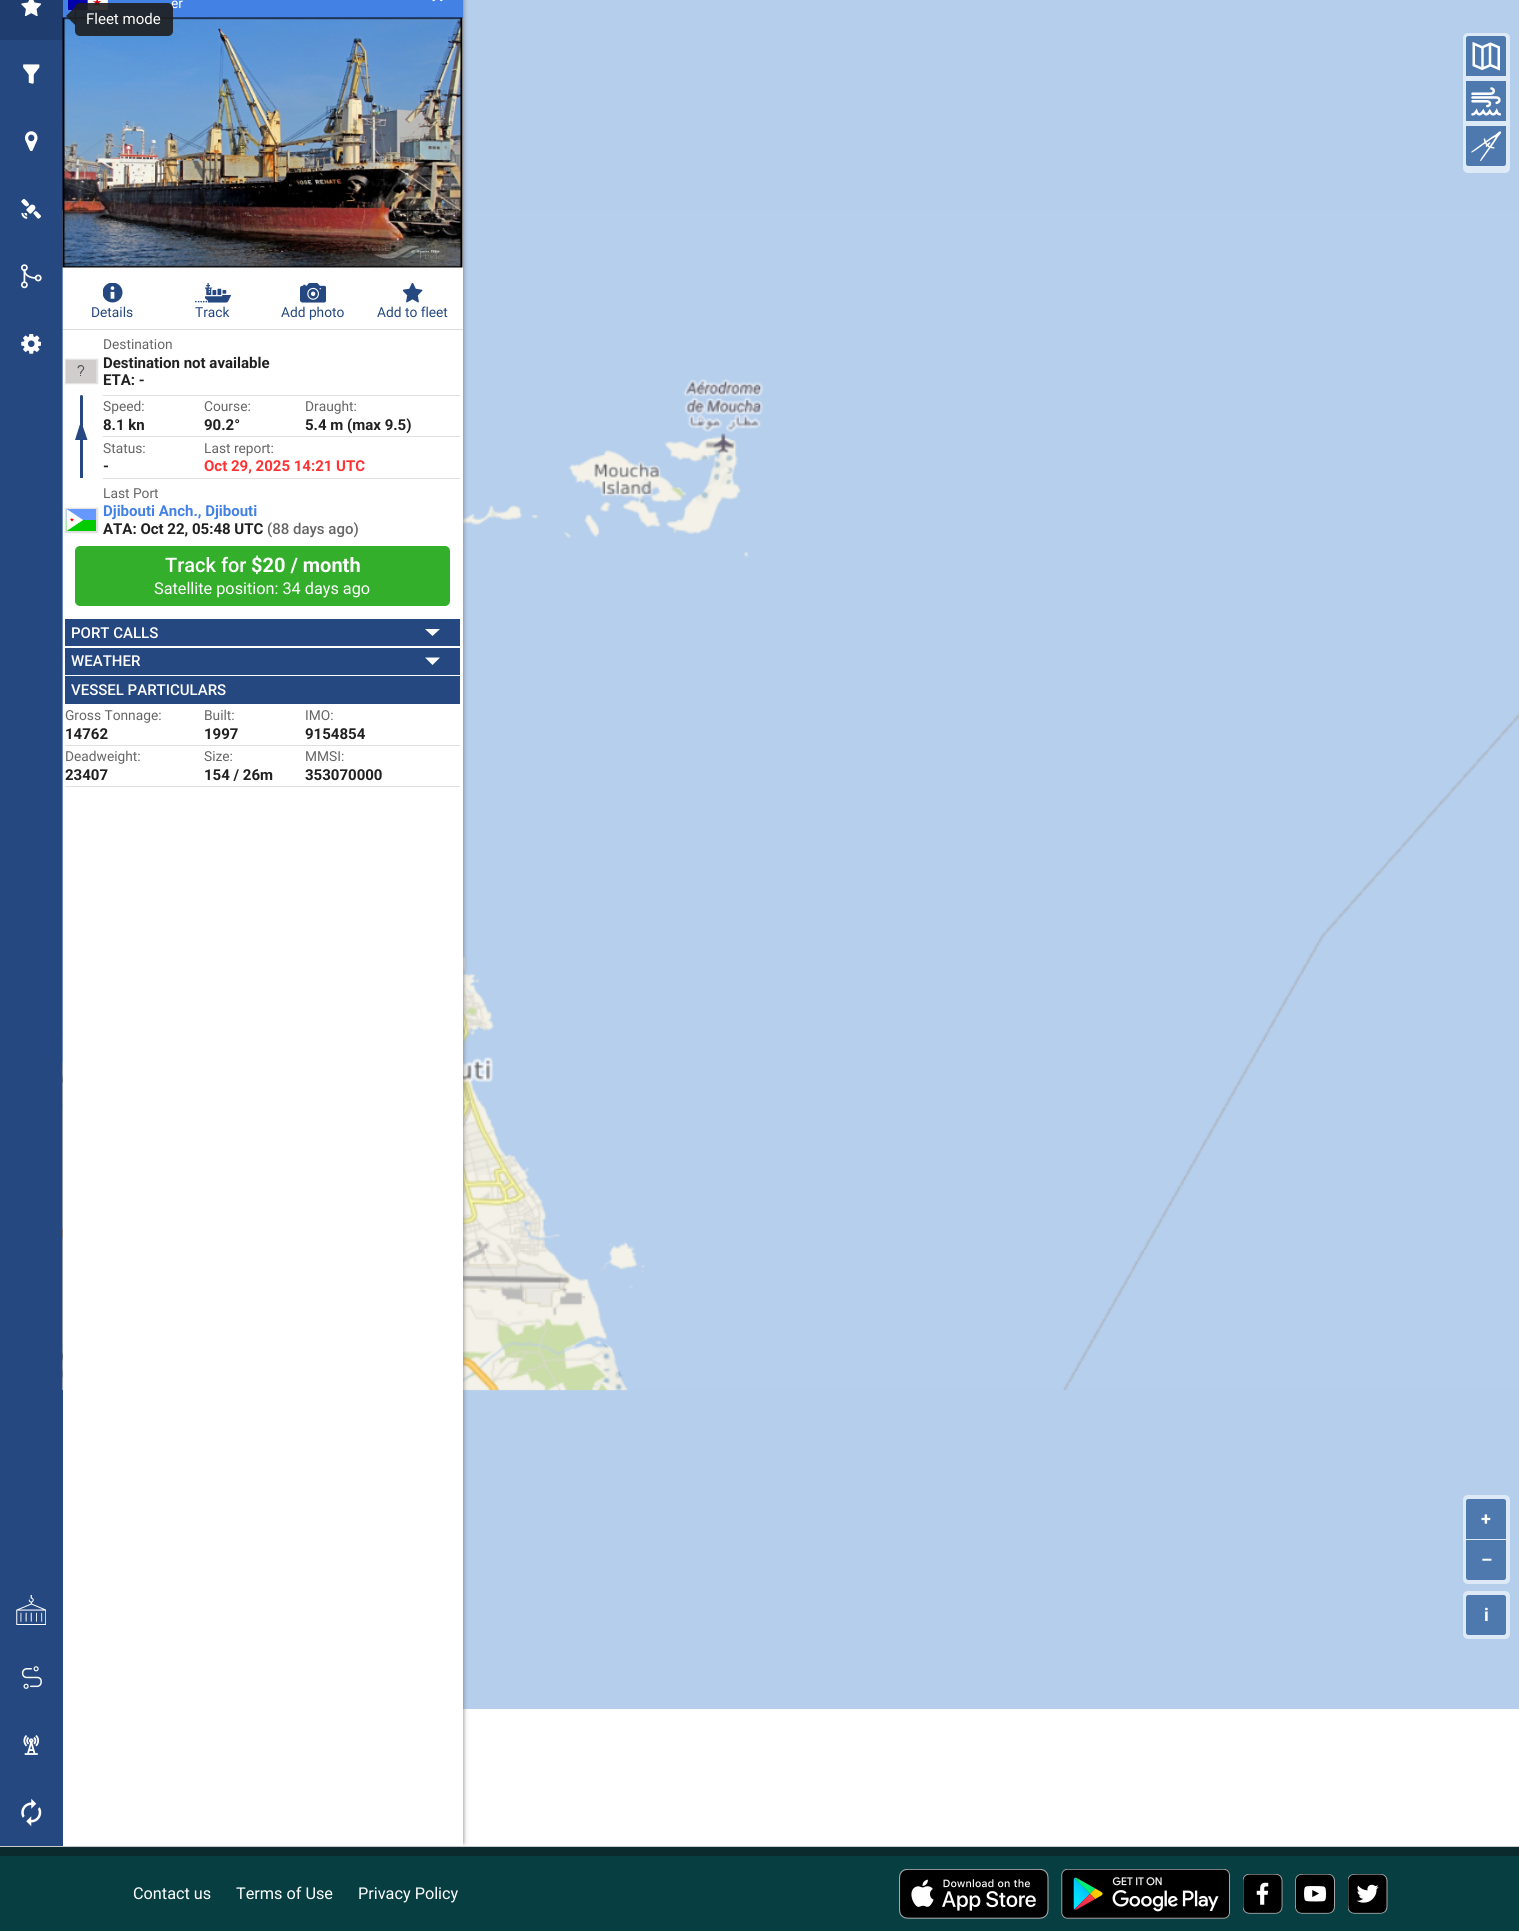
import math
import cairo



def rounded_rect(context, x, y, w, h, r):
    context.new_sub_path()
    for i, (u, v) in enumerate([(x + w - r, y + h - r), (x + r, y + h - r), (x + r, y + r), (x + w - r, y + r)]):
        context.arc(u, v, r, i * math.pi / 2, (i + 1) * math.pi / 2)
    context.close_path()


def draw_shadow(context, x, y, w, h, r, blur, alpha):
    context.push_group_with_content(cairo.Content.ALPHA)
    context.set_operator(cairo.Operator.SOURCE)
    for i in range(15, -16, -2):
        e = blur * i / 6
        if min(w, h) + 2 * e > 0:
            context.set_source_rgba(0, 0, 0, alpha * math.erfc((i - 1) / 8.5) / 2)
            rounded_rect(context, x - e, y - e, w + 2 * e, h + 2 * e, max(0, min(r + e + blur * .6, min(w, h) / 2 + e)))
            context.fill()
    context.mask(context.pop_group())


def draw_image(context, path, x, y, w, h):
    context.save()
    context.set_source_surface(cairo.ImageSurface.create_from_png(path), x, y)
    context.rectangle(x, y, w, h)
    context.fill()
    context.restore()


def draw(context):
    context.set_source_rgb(1, 1, 1)
    context.paint()
    context.set_source_rgb(37 / 255, 72 / 255, 129 / 255)
    context.rectangle(0, 40, 63, 1806)
    context.fill()
    context.set_source_rgb(31 / 255, 61 / 255, 110 / 255)
    context.rectangle(0, 0, 63, 40)
    context.fill()
    draw_image(context, "images/1.png", 21, 0, 20, 16)
    draw_image(context, "images/2.png", 23, 64, 17, 20)
    draw_image(context, "images/3.png", 25, 131, 13, 20)
    draw_image(context, "images/4.png", 21, 199, 20, 20)
    draw_image(context, "images/5.png", 21, 264, 21, 25)
    draw_image(context, "images/6.png", 21, 334, 20, 20)
    draw_image(context, "images/7.png", 16, 1595, 30, 30)
    draw_image(context, "images/8.png", 21, 1666, 21, 23)
    draw_image(context, "images/9.png", 23, 1735, 17, 20)
    draw_image(context, "images/10.png", 21, 1798, 21, 29)
    context.set_source_rgb(180 / 255, 206 / 255, 236 / 255)
    context.rectangle(463, 0, 1056, 1709)
    context.fill()
    draw_image(context, "images/22.png", 62, 209, 1457, 1182)
    context.set_source_rgb(11 / 255, 42 / 255, 46 / 255)
    context.rectangle(0, 1847, 1519, 9)
    context.fill()
    context.set_source_rgb(204 / 255, 204 / 255, 204 / 255)
    context.rectangle(0, 1846, 1519, 1)
    context.fill()
    context.set_source_rgb(119 / 255, 119 / 255, 119 / 255)
    draw_shadow(context, 70, -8, 393, 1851, 0, 2.5, 1)
    context.set_source_rgb(1, 1, 1)
    context.rectangle(63, 18, 400, 1828)
    context.fill()
    context.set_source_rgb(68 / 255, 129 / 255, 228 / 255)
    context.rectangle(63, 0, 400, 18)
    context.fill()
    context.set_source_rgb(204 / 255, 204 / 255, 204 / 255)
    context.rectangle(107, 0, 1, 10)
    context.fill()
    draw_image(context, "images/11.png", 68, 0, 40, 10)
    draw_image(context, "images/12.png", 432, 0, 11, 2)
    draw_image(context, "images/13.png", 62, 17, 401, 251)
    context.set_source_rgb(221 / 255, 221 / 255, 221 / 255)
    context.rectangle(63, 329, 400, 1)
    context.fill()
    draw_image(context, "images/14.png", 103, 283, 20, 20)
    draw_image(context, "images/15.png", 195, 283, 36, 20)
    draw_image(context, "images/16.png", 300, 283, 26, 20)
    draw_image(context, "images/17.png", 403, 283, 20, 20)
    context.set_source_rgb(222 / 255, 222 / 255, 222 / 255)
    draw_shadow(context, 65, 359, 33, 25, 0, 0.5, 1)
    context.set_source_rgb(210 / 255, 205 / 255, 205 / 255)
    context.rectangle(66, 360, 30, 23)
    context.fill()
    context.set_source_rgb(79 / 255, 84 / 255, 89 / 255)
    context.new_path()
    context.move_to(80, 374)
    context.curve_to(80, 370.5, 83, 370.5, 83, 368)
    context.curve_to(83, 365.5, 79, 365.5, 78.5, 368.5)
    context.line_to(77.5, 368)
    context.curve_to(77.5, 366, 79, 365, 81, 365)
    context.curve_to(82, 365, 83, 365.5, 83.5, 366.5)
    context.curve_to(86, 369.5, 81.5, 370.5, 81, 374)
    context.close_path()
    context.move_to(80, 376)
    context.line_to(80, 375)
    context.line_to(81, 375)
    context.line_to(81, 376)
    context.close_path()
    context.fill()
    context.set_source_rgb(37 / 255, 72 / 255, 129 / 255)
    rounded_rect(context, 80, 395, 3, 83, 1.5)
    context.fill()
    context.new_path()
    context.move_to(87.5, 440)
    context.line_to(75, 440)
    context.line_to(81, 421)
    context.close_path()
    context.fill()
    context.rectangle(80, 476, 3, 2)
    context.fill()
    context.set_source_rgb(224 / 255, 224 / 255, 224 / 255)
    context.rectangle(103, 395, 357, 1)
    context.fill()
    context.rectangle(103, 436, 357, 1)
    context.fill()
    context.rectangle(103, 478, 357, 1)
    context.fill()
    context.set_source_rgb(222 / 255, 222 / 255, 222 / 255)
    draw_shadow(context, 65, 508, 33, 25, 0, 0.5, 1)
    draw_image(context, "images/18.png", 66, 509, 30, 22)
    context.set_source_rgb(51 / 255, 175 / 255, 44 / 255)
    rounded_rect(context, 75, 546, 375, 60, 5)
    context.fill()
    context.set_source_rgb(37 / 255, 72 / 255, 129 / 255)
    context.rectangle(65, 619, 395, 27)
    context.fill()
    context.set_source_rgb(1, 1, 1)
    context.new_path()
    context.move_to(425, 629)
    context.line_to(440, 629)
    context.line_to(432.5, 636)
    context.close_path()
    context.fill()
    context.set_source_rgb(37 / 255, 72 / 255, 129 / 255)
    context.rectangle(65, 648, 395, 27)
    context.fill()
    context.set_source_rgb(1, 1, 1)
    context.new_path()
    context.move_to(425, 657.5)
    context.line_to(440, 657.5)
    context.line_to(432.5, 665)
    context.close_path()
    context.fill()
    context.set_source_rgb(37 / 255, 72 / 255, 129 / 255)
    context.rectangle(65, 676, 395, 28)
    context.fill()
    context.set_source_rgb(224 / 255, 224 / 255, 224 / 255)
    context.rectangle(65, 745, 395, 1)
    context.fill()
    context.rectangle(65, 786, 395, 1)
    context.fill()
    context.set_source_rgb(221 / 255, 233 / 255, 246 / 255)
    rounded_rect(context, 1463, 33, 47, 140, 5)
    context.fill()
    context.set_source_rgb(77 / 255, 121 / 255, 175 / 255)
    context.new_path()
    context.move_to(1468.5, 36)
    context.line_to(1503.5, 36)
    context.curve_to(1505, 36, 1506, 37, 1506, 38.5)
    context.line_to(1506, 76)
    context.line_to(1466, 76)
    context.line_to(1466, 38.5)
    context.curve_to(1466, 37, 1467, 36, 1468.5, 36)
    context.close_path()
    context.fill()
    draw_image(context, "images/19.png", 1472, 41, 28, 30)
    context.rectangle(1466, 81, 40, 40)
    context.fill()
    draw_image(context, "images/20.png", 1471, 87, 30, 29)
    context.new_path()
    context.move_to(1466, 126)
    context.line_to(1506, 126)
    context.line_to(1506, 163.5)
    context.curve_to(1506, 165, 1505, 166, 1503.5, 166)
    context.line_to(1468.5, 166)
    context.curve_to(1467, 166, 1466, 165, 1466, 163.5)
    context.close_path()
    context.fill()
    draw_image(context, "images/21.png", 1471, 131, 30, 30)
    context.set_source_rgb(221 / 255, 233 / 255, 246 / 255)
    rounded_rect(context, 1463, 1495, 47, 89, 5)
    context.fill()
    context.set_source_rgb(77 / 255, 121 / 255, 175 / 255)
    context.new_path()
    context.move_to(1468.5, 1499)
    context.line_to(1503.5, 1499)
    context.curve_to(1505, 1499, 1506, 1500, 1506, 1501.5)
    context.line_to(1506, 1539)
    context.line_to(1466, 1539)
    context.line_to(1466, 1501.5)
    context.curve_to(1466, 1500, 1467, 1499, 1468.5, 1499)
    context.close_path()
    context.fill()
    context.new_path()
    context.move_to(1466, 1540)
    context.line_to(1506, 1540)
    context.line_to(1506, 1577.5)
    context.curve_to(1506, 1579, 1505, 1580, 1503.5, 1580)
    context.line_to(1468.5, 1580)
    context.curve_to(1467, 1580, 1466, 1579, 1466, 1577.5)
    context.close_path()
    context.fill()
    context.set_source_rgb(221 / 255, 233 / 255, 246 / 255)
    rounded_rect(context, 1463, 1591, 47, 48, 5)
    context.fill()
    context.set_source_rgb(77 / 255, 121 / 255, 175 / 255)
    rounded_rect(context, 1466, 1595, 40, 40, 2.5)
    context.fill()
    context.set_source_rgb(7 / 255, 62 / 255, 66 / 255)
    context.rectangle(0, 1856, 1519, 75)
    context.fill()
    draw_image(context, "images/23.png", 899, 1869, 150, 50)
    draw_image(context, "images/24.png", 1061, 1869, 169, 50)
    draw_image(context, "images/25.png", 1243, 1874, 40, 40)
    draw_image(context, "images/26.png", 1295, 1874, 40, 40)
    draw_image(context, "images/27.png", 1348, 1874, 40, 40)
    context.select_font_face("Roboto")
    context.set_font_size(13.75)
    context.set_source_rgb(1, 1, 1)
    context.move_to(171, 8)
    context.show_text("er")
    context.set_source_rgb(37 / 255, 72 / 255, 129 / 255)
    context.move_to(91, 317)
    context.show_text("Details")
    context.move_to(195, 317)
    context.show_text("Track")
    context.move_to(281, 317)
    context.show_text("Add photo")
    context.move_to(377, 317)
    context.show_text("Add to fleet")
    context.set_source_rgb(102 / 255, 102 / 255, 102 / 255)
    context.move_to(103, 349)
    context.show_text("Destination")
    context.select_font_face("Roboto", cairo.FontSlant.NORMAL, cairo.FontWeight.BOLD)
    context.set_font_size(15)
    context.set_source_rgb(33 / 255, 33 / 255, 33 / 255)
    context.move_to(103, 368)
    context.show_text("Destination not available")
    context.move_to(103, 385)
    context.show_text("ETA: -")
    context.select_font_face("Roboto")
    context.set_font_size(13.75)
    context.set_source_rgb(102 / 255, 102 / 255, 102 / 255)
    context.move_to(103, 411)
    context.show_text("Speed:")
    context.select_font_face("Roboto", cairo.FontSlant.NORMAL, cairo.FontWeight.BOLD)
    context.set_font_size(15)
    context.set_source_rgb(33 / 255, 33 / 255, 33 / 255)
    context.move_to(103, 430)
    context.show_text("8.1 kn")
    context.select_font_face("Roboto")
    context.set_font_size(13.75)
    context.set_source_rgb(102 / 255, 102 / 255, 102 / 255)
    context.move_to(204, 411)
    context.show_text("Course:")
    context.select_font_face("Roboto", cairo.FontSlant.NORMAL, cairo.FontWeight.BOLD)
    context.set_font_size(15)
    context.set_source_rgb(33 / 255, 33 / 255, 33 / 255)
    context.move_to(204, 430)
    context.show_text("90.2°")
    context.select_font_face("Roboto")
    context.set_font_size(13.75)
    context.set_source_rgb(102 / 255, 102 / 255, 102 / 255)
    context.move_to(305, 411)
    context.show_text("Draught:")
    context.select_font_face("Roboto", cairo.FontSlant.NORMAL, cairo.FontWeight.BOLD)
    context.set_font_size(15)
    context.set_source_rgb(33 / 255, 33 / 255, 33 / 255)
    context.move_to(305, 430)
    context.show_text("5.4 m (max 9.5)")
    context.select_font_face("Roboto")
    context.set_font_size(13.75)
    context.set_source_rgb(102 / 255, 102 / 255, 102 / 255)
    context.move_to(103, 453)
    context.show_text("Status:")
    context.select_font_face("Roboto", cairo.FontSlant.NORMAL, cairo.FontWeight.BOLD)
    context.set_font_size(15)
    context.set_source_rgb(33 / 255, 33 / 255, 33 / 255)
    context.move_to(103, 471)
    context.show_text("-")
    context.select_font_face("Roboto")
    context.set_font_size(13.75)
    context.set_source_rgb(102 / 255, 102 / 255, 102 / 255)
    context.move_to(204, 453)
    context.show_text("Last report:")
    context.select_font_face("Roboto", cairo.FontSlant.NORMAL, cairo.FontWeight.BOLD)
    context.set_font_size(15)
    context.set_source_rgb(1, 51 / 255, 51 / 255)
    context.move_to(204, 471)
    context.show_text("Oct 29, 2025 14:21 UTC")
    context.select_font_face("Roboto")
    context.set_font_size(13.75)
    context.set_source_rgb(102 / 255, 102 / 255, 102 / 255)
    context.move_to(103, 498)
    context.show_text("Last Port")
    context.select_font_face("Roboto", cairo.FontSlant.NORMAL, cairo.FontWeight.BOLD)
    context.set_font_size(15)
    context.set_source_rgb(68 / 255, 129 / 255, 228 / 255)
    context.move_to(103, 516)
    context.show_text("Djibouti Anch., Djibouti")
    context.set_source_rgb(33 / 255, 33 / 255, 33 / 255)
    context.move_to(103, 534)
    context.show_text("ATA: Oct 22, 05:48 UTC")
    context.select_font_face("Roboto Medium")
    context.set_source_rgb(102 / 255, 102 / 255, 102 / 255)
    context.move_to(267, 534)
    context.show_text("(88 days ago)")
    context.set_font_size(20)
    context.set_source_rgb(1, 1, 1)
    context.move_to(165, 572)
    context.show_text("Track for")
    context.select_font_face("Roboto", cairo.FontSlant.NORMAL, cairo.FontWeight.BOLD)
    context.move_to(251, 572)
    context.show_text("$20 / month")
    context.select_font_face("Roboto")
    context.set_font_size(16.25)
    context.move_to(154, 594)
    context.show_text("Satellite position: 34 days ago")
    context.select_font_face("Roboto Medium")
    context.set_font_size(15)
    context.move_to(71, 638)
    context.show_text("PORT CALLS")
    context.move_to(71, 666)
    context.show_text("WEATHER")
    context.move_to(71, 695)
    context.show_text("VESSEL PARTICULARS")
    context.select_font_face("Roboto")
    context.set_font_size(13.75)
    context.set_source_rgb(102 / 255, 102 / 255, 102 / 255)
    context.move_to(65, 720)
    context.show_text("Gross Tonnage:")
    context.select_font_face("Roboto", cairo.FontSlant.NORMAL, cairo.FontWeight.BOLD)
    context.set_font_size(15)
    context.set_source_rgb(33 / 255, 33 / 255, 33 / 255)
    context.move_to(65, 739)
    context.show_text("14762")
    context.select_font_face("Roboto")
    context.set_font_size(13.75)
    context.set_source_rgb(102 / 255, 102 / 255, 102 / 255)
    context.move_to(204, 720)
    context.show_text("Built:")
    context.select_font_face("Roboto", cairo.FontSlant.NORMAL, cairo.FontWeight.BOLD)
    context.set_font_size(15)
    context.set_source_rgb(33 / 255, 33 / 255, 33 / 255)
    context.move_to(204, 739)
    context.show_text("1997")
    context.select_font_face("Roboto")
    context.set_font_size(13.75)
    context.set_source_rgb(102 / 255, 102 / 255, 102 / 255)
    context.move_to(305, 720)
    context.show_text("IMO:")
    context.select_font_face("Roboto", cairo.FontSlant.NORMAL, cairo.FontWeight.BOLD)
    context.set_font_size(15)
    context.set_source_rgb(33 / 255, 33 / 255, 33 / 255)
    context.move_to(305, 739)
    context.show_text("9154854")
    context.select_font_face("Roboto")
    context.set_font_size(13.75)
    context.set_source_rgb(102 / 255, 102 / 255, 102 / 255)
    context.move_to(65, 761)
    context.show_text("Deadweight:")
    context.select_font_face("Roboto", cairo.FontSlant.NORMAL, cairo.FontWeight.BOLD)
    context.set_font_size(15)
    context.set_source_rgb(33 / 255, 33 / 255, 33 / 255)
    context.move_to(65, 780)
    context.show_text("23407")
    context.select_font_face("Roboto")
    context.set_font_size(13.75)
    context.set_source_rgb(102 / 255, 102 / 255, 102 / 255)
    context.move_to(204, 761)
    context.show_text("Size:")
    context.select_font_face("Roboto", cairo.FontSlant.NORMAL, cairo.FontWeight.BOLD)
    context.set_font_size(15)
    context.set_source_rgb(33 / 255, 33 / 255, 33 / 255)
    context.move_to(204, 780)
    context.show_text("154 / 26m")
    context.select_font_face("Roboto")
    context.set_font_size(13.75)
    context.set_source_rgb(102 / 255, 102 / 255, 102 / 255)
    context.move_to(305, 761)
    context.show_text("MMSI:")
    context.select_font_face("Roboto", cairo.FontSlant.NORMAL, cairo.FontWeight.BOLD)
    context.set_font_size(15)
    context.set_source_rgb(33 / 255, 33 / 255, 33 / 255)
    context.move_to(305, 780)
    context.show_text("353070000")
    context.set_font_size(18)
    context.set_source_rgb(1, 1, 1)
    context.move_to(1481, 1525)
    context.show_text("+")
    context.move_to(1481, 1566)
    context.show_text("–")
    context.move_to(1484, 1621)
    context.show_text("i")
    context.set_source_rgba(30 / 255, 30 / 255, 30 / 255, 0.9)
    rounded_rect(context, 75, 3, 98, 33, 5)
    context.fill()
    context.new_path()
    context.move_to(76, 6)
    context.line_to(76, 26)
    context.line_to(66, 16)
    context.close_path()
    context.fill()
    context.select_font_face("Roboto")
    context.set_font_size(15)
    context.set_source_rgb(1, 1, 1)
    context.move_to(86, 24)
    context.show_text("Fleet mode")
    context.set_font_size(16.25)
    context.move_to(133, 1899)
    context.show_text("Contact us")
    context.move_to(236, 1899)
    context.show_text("Terms of Use")
    context.move_to(358, 1899)
    context.show_text("Privacy Policy")


surface = cairo.ImageSurface(cairo.Format.RGB24, 1519, 1931)
context = cairo.Context(surface)
options = cairo.FontOptions()
options.set_hint_metrics(cairo.HintMetrics.OFF)
options.set_hint_style(cairo.HintStyle.NONE)
context.set_font_options(options)
context.set_miter_limit(4)
draw(context)
surface.write_to_png("out.png")
